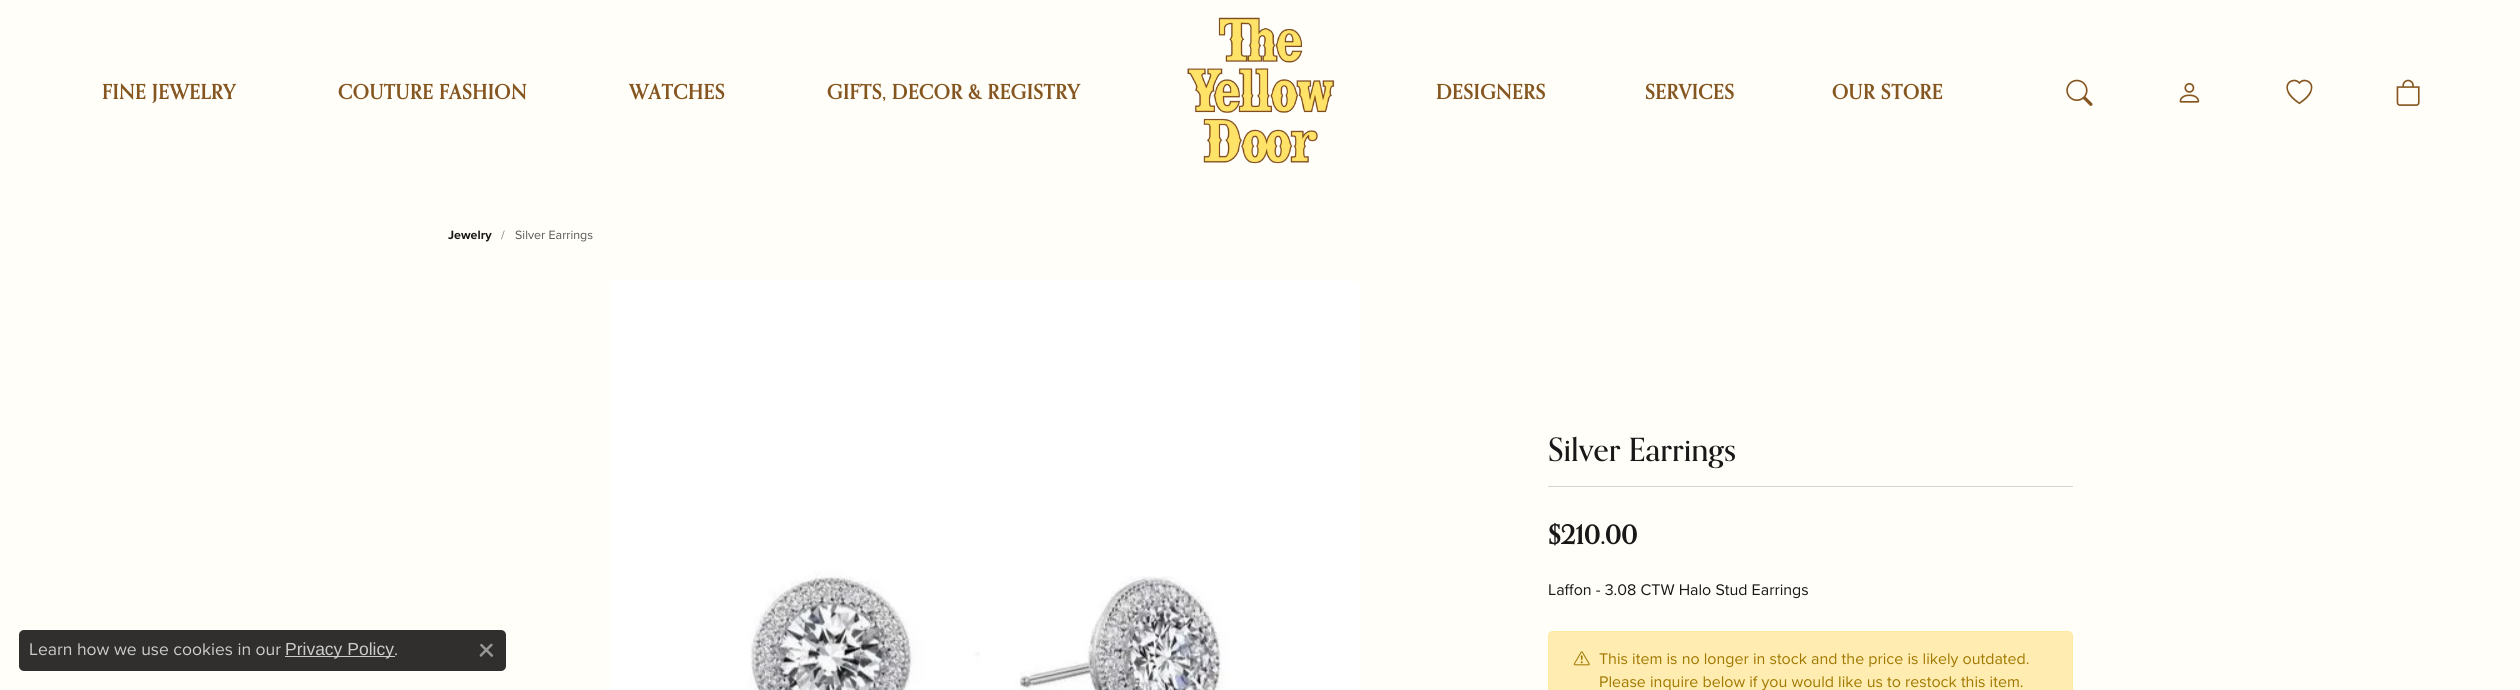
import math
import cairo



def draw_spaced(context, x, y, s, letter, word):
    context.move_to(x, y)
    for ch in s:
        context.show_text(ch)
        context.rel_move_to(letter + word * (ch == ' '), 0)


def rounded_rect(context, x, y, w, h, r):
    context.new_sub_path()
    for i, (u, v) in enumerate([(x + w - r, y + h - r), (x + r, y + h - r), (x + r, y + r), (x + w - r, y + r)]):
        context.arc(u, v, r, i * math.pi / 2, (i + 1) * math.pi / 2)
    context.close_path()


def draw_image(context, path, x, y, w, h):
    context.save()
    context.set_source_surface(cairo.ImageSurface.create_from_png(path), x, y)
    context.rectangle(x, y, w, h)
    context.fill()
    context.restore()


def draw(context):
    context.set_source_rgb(1, 254 / 255, 248 / 255)
    context.paint()
    draw_image(context, "images/1.png", 1187, 17, 148, 147)
    draw_image(context, "images/2.png", 2066, 79, 27, 27)
    draw_image(context, "images/3.png", 2179, 83, 21, 20)
    draw_image(context, "images/4.png", 2286, 79, 27, 26)
    draw_image(context, "images/5.png", 2396, 79, 24, 27)
    draw_image(context, "images/6.png", 610, 281, 750, 409)
    context.set_source_rgb(213 / 255, 212 / 255, 208 / 255)
    context.rectangle(1548, 486, 525, 1)
    context.fill()
    context.set_source_rgb(1, 236 / 255, 176 / 255)
    rounded_rect(context, 1548, 631, 525, 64, 5)
    context.fill()
    rounded_rect(context, 1548.5, 631.5, 524, 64, 4.5)
    context.set_source_rgba(1, 193 / 255, 7 / 255, 0.1)
    context.set_line_width(1)
    context.stroke()
    draw_image(context, "images/7.png", 1573, 651, 17, 15)
    context.set_source_rgb(48 / 255, 47 / 255, 46 / 255)
    rounded_rect(context, 19, 630, 487, 41, 5)
    context.fill()
    context.set_source_rgb(204 / 255, 204 / 255, 204 / 255)
    context.rectangle(285, 656, 110, 1)
    context.fill()
    draw_image(context, "images/8.png", 479, 643, 15, 14)
    context.select_font_face("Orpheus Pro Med", cairo.FontSlant.NORMAL, cairo.FontWeight.BOLD)
    context.set_font_size(20)
    context.set_source_rgb(134 / 255, 86 / 255, 33 / 255)
    draw_spaced(context, 102, 99, "FINE JEWELRY", 0.6, 0)
    draw_spaced(context, 338, 99, "COUTURE FASHION", 0.6, 0)
    draw_spaced(context, 629, 99, "WATCHES", 0.6, 0)
    draw_spaced(context, 827, 99, "GIFTS, DECOR & REGISTRY", 0.6, 0)
    draw_spaced(context, 1436, 99, "DESIGNERS", 0.6, 0)
    draw_spaced(context, 1645, 99, "SERVICES", 0.6, 0)
    draw_spaced(context, 1832, 99, "OUR STORE", 0.6, 0)
    context.select_font_face("Proxima Nova", cairo.FontSlant.NORMAL, cairo.FontWeight.BOLD)
    context.set_font_size(12.5)
    context.set_source_rgb(25 / 255, 24 / 255, 24 / 255)
    context.move_to(448, 239)
    context.show_text("Jewelry")
    context.select_font_face("Proxima Nova")
    context.set_source_rgb(125 / 255, 125 / 255, 125 / 255)
    context.move_to(501, 239)
    context.show_text("/")
    context.set_source_rgb(90 / 255, 86 / 255, 86 / 255)
    context.move_to(515, 239)
    context.show_text("Silver Earrings")
    context.select_font_face("Orpheus Pro Med Medium")
    context.set_font_size(32)
    context.set_source_rgb(25 / 255, 24 / 255, 24 / 255)
    context.move_to(1548, 461)
    context.show_text("Silver Earrings")
    context.select_font_face("Orpheus Pro Med", cairo.FontSlant.NORMAL, cairo.FontWeight.BOLD)
    context.set_font_size(26)
    context.move_to(1548, 544)
    context.show_text("$210.00")
    context.select_font_face("Proxima Nova")
    context.set_font_size(16)
    context.move_to(1548, 595)
    context.show_text("Laffon - 3.08 CTW Halo Stud Earrings")
    context.set_source_rgb(160 / 255, 120 / 255, 0)
    context.move_to(1599, 664)
    context.show_text("This item is no longer in stock and the price is likely outdated.")
    context.move_to(1599, 687)
    context.show_text("Please inquire below if you would like us to restock this item.")
    context.set_font_size(17.5)
    context.set_source_rgb(204 / 255, 204 / 255, 204 / 255)
    context.move_to(29, 655)
    context.show_text("Learn how we use cookies in our")
    context.select_font_face("Liberation Sans")
    context.move_to(285, 655)
    context.show_text("Privacy Policy")
    context.select_font_face("Proxima Nova")
    context.move_to(394, 655)
    context.show_text(".")


surface = cairo.ImageSurface(cairo.Format.RGB24, 2520, 690)
context = cairo.Context(surface)
options = cairo.FontOptions()
options.set_hint_metrics(cairo.HintMetrics.OFF)
options.set_hint_style(cairo.HintStyle.NONE)
context.set_font_options(options)
context.set_miter_limit(4)
draw(context)
surface.write_to_png("out.png")
